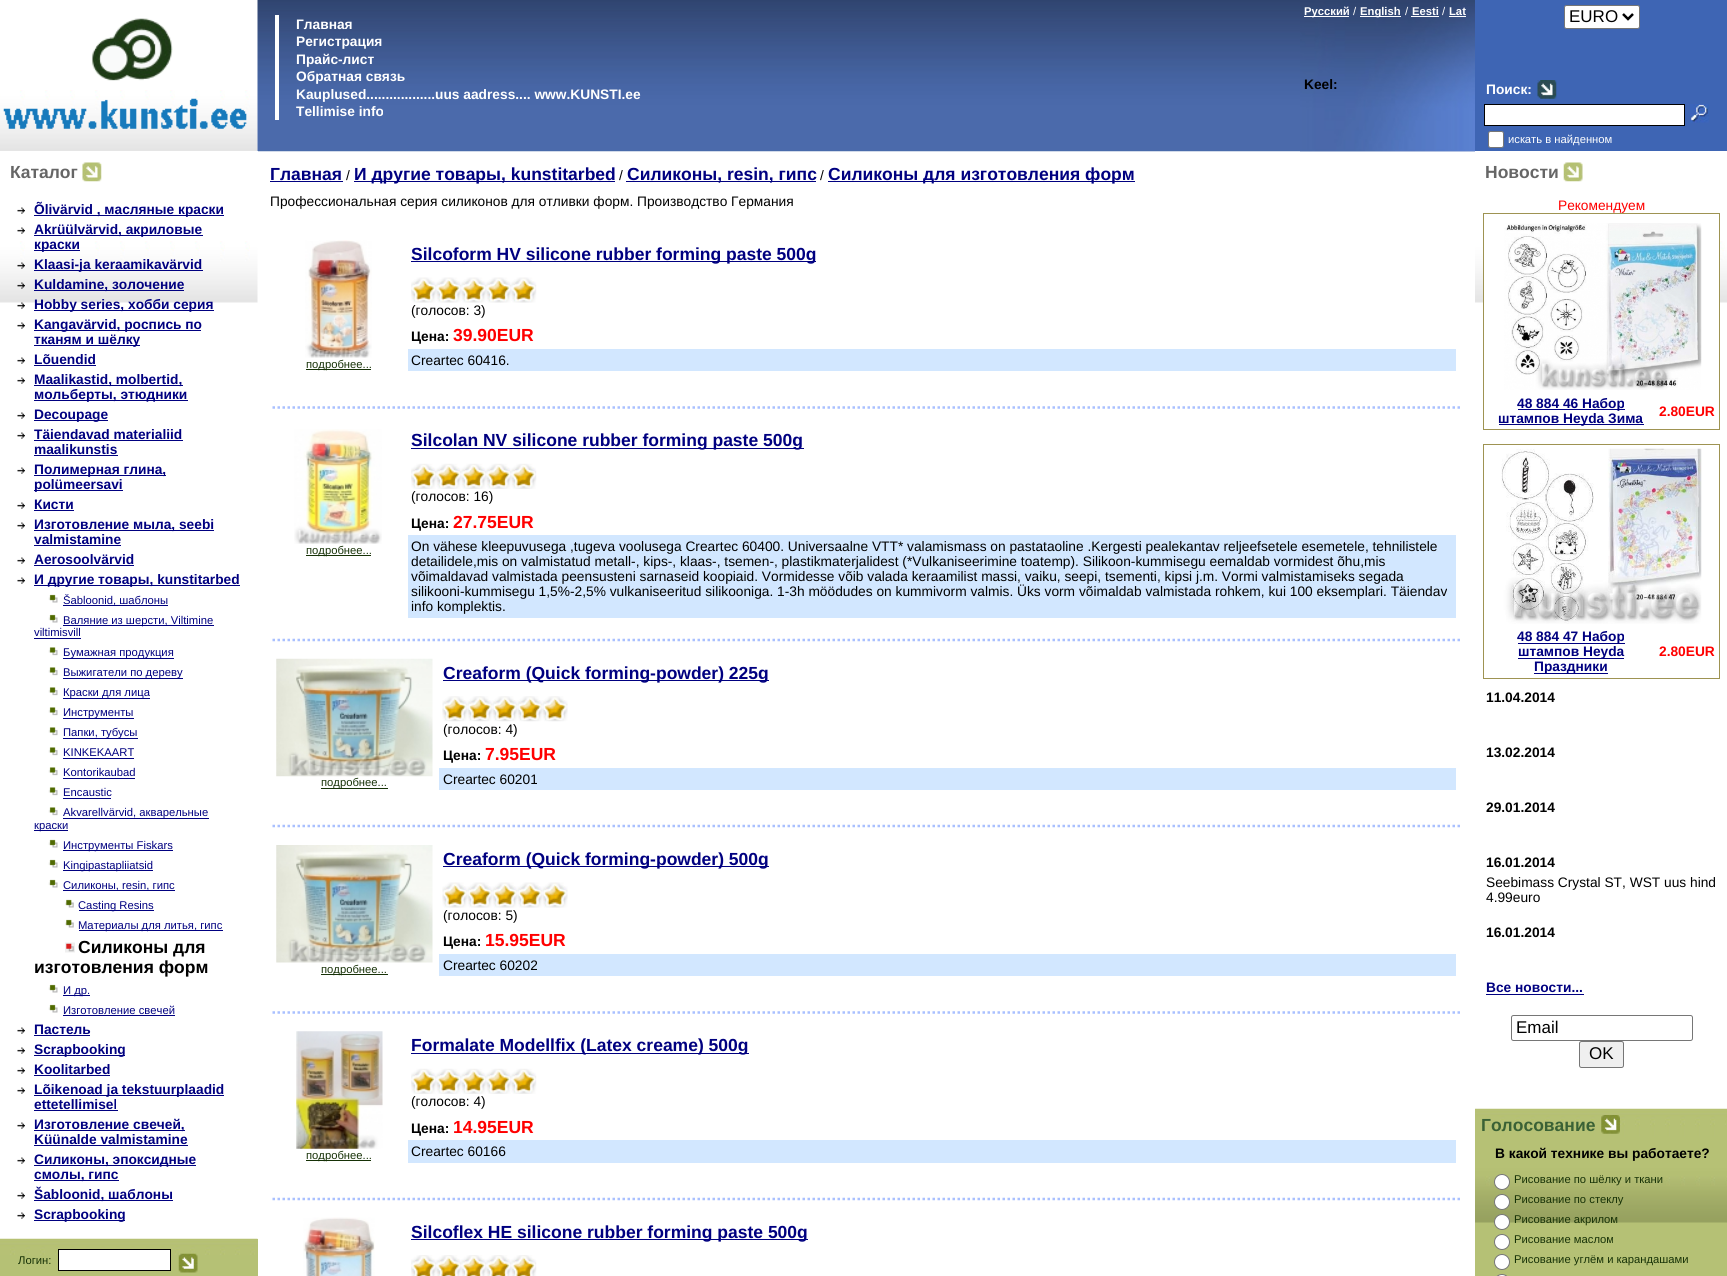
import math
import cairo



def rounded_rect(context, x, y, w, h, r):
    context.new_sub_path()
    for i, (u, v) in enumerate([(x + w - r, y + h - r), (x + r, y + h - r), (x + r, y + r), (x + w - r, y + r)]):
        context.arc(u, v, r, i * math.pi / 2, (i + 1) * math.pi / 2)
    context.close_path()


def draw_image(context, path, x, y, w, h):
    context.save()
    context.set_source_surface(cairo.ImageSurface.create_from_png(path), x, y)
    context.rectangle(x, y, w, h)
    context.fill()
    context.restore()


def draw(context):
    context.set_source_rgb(1, 1, 1)
    context.paint()
    draw_image(context, "images/1.png", 0, 90, 258, 61)
    draw_image(context, "images/2.png", 3, 18, 244, 111)
    draw_image(context, "images/3.png", 257, 0, 1218, 152)
    context.set_source_rgb(1, 1, 1)
    context.rectangle(275, 15, 4, 105)
    context.fill()
    draw_image(context, "images/4.png", 1300, 0, 175, 152)
    context.rectangle(1304, 16, 45, 1)
    context.fill()
    context.rectangle(1360, 16, 41, 1)
    context.fill()
    context.rectangle(1411, 16, 28, 1)
    context.fill()
    context.rectangle(1449, 16, 17, 1)
    context.fill()
    context.set_source_rgb(62 / 255, 101 / 255, 180 / 255)
    context.rectangle(1475, 0, 252, 151)
    context.fill()
    context.set_source_rgb(1, 1, 1)
    rounded_rect(context, 1564.5, 5.5, 75, 23, 2)
    context.fill_preserve()
    context.set_source_rgb(118 / 255, 118 / 255, 118 / 255)
    context.set_line_width(1)
    context.stroke()
    context.new_path()
    context.move_to(1623, 14)
    context.line_to(1628, 19)
    context.line_to(1633, 14)
    context.set_source_rgb(0, 0, 0)
    context.set_line_width(2.5)
    context.stroke()
    draw_image(context, "images/5.png", 1537, 80, 20, 19)
    context.set_source_rgb(1, 1, 1)
    context.rectangle(1484.5, 104.5, 200, 21)
    context.fill_preserve()
    context.set_source_rgb(0, 0, 0)
    context.set_line_width(1)
    context.stroke()
    draw_image(context, "images/6.png", 1690, 104, 19, 19)
    context.set_source_rgb(1, 1, 1)
    rounded_rect(context, 1488.5, 131.5, 15, 16, 2)
    context.fill_preserve()
    context.set_source_rgb(118 / 255, 118 / 255, 118 / 255)
    context.stroke()
    context.set_source_rgb(1, 1, 1)
    context.rectangle(257, 151, 1, 1)
    context.fill()
    draw_image(context, "images/7.png", 0, 241, 258, 62)
    draw_image(context, "images/8.png", 82, 162, 20, 20)
    draw_image(context, "images/9.png", 17, 207, 8, 7)
    context.set_source_rgb(0, 0, 128 / 255)
    context.rectangle(34, 215, 190, 1)
    context.fill()
    draw_image(context, "images/9.png", 17, 227, 8, 7)
    context.rectangle(34, 235, 169, 1)
    context.fill()
    context.rectangle(34, 250, 46, 1)
    context.fill()
    draw_image(context, "images/10.png", 17, 262, 8, 7)
    context.rectangle(34, 270, 169, 1)
    context.fill()
    draw_image(context, "images/11.png", 17, 282, 8, 7)
    context.rectangle(34, 290, 150, 1)
    context.fill()
    draw_image(context, "images/12.png", 17, 302, 8, 7)
    context.rectangle(34, 310, 180, 1)
    context.fill()
    draw_image(context, "images/9.png", 17, 322, 8, 7)
    context.rectangle(34, 330, 167, 1)
    context.fill()
    context.rectangle(34, 345, 106, 1)
    context.fill()
    draw_image(context, "images/9.png", 17, 357, 8, 7)
    context.rectangle(34, 365, 62, 1)
    context.fill()
    draw_image(context, "images/9.png", 17, 377, 8, 7)
    context.rectangle(34, 385, 149, 1)
    context.fill()
    context.rectangle(34, 400, 154, 1)
    context.fill()
    draw_image(context, "images/9.png", 17, 412, 8, 7)
    context.rectangle(34, 420, 74, 1)
    context.fill()
    draw_image(context, "images/9.png", 17, 432, 8, 7)
    context.rectangle(34, 440, 149, 1)
    context.fill()
    context.rectangle(34, 455, 84, 1)
    context.fill()
    draw_image(context, "images/9.png", 17, 467, 8, 7)
    context.rectangle(34, 475, 132, 1)
    context.fill()
    context.rectangle(34, 490, 89, 1)
    context.fill()
    draw_image(context, "images/9.png", 17, 502, 8, 7)
    context.rectangle(34, 510, 40, 1)
    context.fill()
    draw_image(context, "images/9.png", 17, 522, 8, 7)
    context.rectangle(34, 530, 180, 1)
    context.fill()
    context.rectangle(34, 545, 87, 1)
    context.fill()
    draw_image(context, "images/9.png", 17, 557, 8, 7)
    context.rectangle(34, 565, 100, 1)
    context.fill()
    draw_image(context, "images/9.png", 17, 577, 8, 7)
    context.rectangle(34, 585, 206, 1)
    context.fill()
    draw_image(context, "images/13.png", 48, 594, 10, 9)
    context.rectangle(63, 605, 105, 1)
    context.fill()
    draw_image(context, "images/13.png", 48, 614, 10, 9)
    context.rectangle(63, 625, 151, 1)
    context.fill()
    context.rectangle(34, 638, 47, 1)
    context.fill()
    draw_image(context, "images/14.png", 48, 647, 10, 9)
    context.rectangle(63, 658, 111, 1)
    context.fill()
    draw_image(context, "images/14.png", 48, 667, 10, 9)
    context.rectangle(63, 678, 120, 1)
    context.fill()
    draw_image(context, "images/14.png", 48, 687, 10, 9)
    context.rectangle(63, 698, 87, 1)
    context.fill()
    draw_image(context, "images/14.png", 48, 707, 10, 9)
    context.rectangle(63, 718, 71, 1)
    context.fill()
    draw_image(context, "images/14.png", 48, 727, 10, 9)
    context.rectangle(63, 738, 75, 1)
    context.fill()
    draw_image(context, "images/14.png", 48, 747, 10, 9)
    context.rectangle(63, 758, 71, 1)
    context.fill()
    draw_image(context, "images/14.png", 48, 767, 10, 9)
    context.rectangle(63, 778, 72, 1)
    context.fill()
    draw_image(context, "images/14.png", 48, 787, 10, 9)
    context.rectangle(63, 798, 48, 1)
    context.fill()
    draw_image(context, "images/14.png", 48, 807, 10, 9)
    context.rectangle(63, 818, 146, 1)
    context.fill()
    context.rectangle(34, 830, 34, 1)
    context.fill()
    draw_image(context, "images/13.png", 48, 839, 10, 9)
    context.rectangle(63, 850, 110, 1)
    context.fill()
    draw_image(context, "images/13.png", 48, 859, 10, 9)
    context.rectangle(63, 870, 90, 1)
    context.fill()
    draw_image(context, "images/13.png", 48, 879, 10, 9)
    context.rectangle(63, 890, 112, 1)
    context.fill()
    draw_image(context, "images/15.png", 65, 899, 9, 9)
    context.rectangle(79, 910, 75, 1)
    context.fill()
    draw_image(context, "images/15.png", 65, 919, 9, 9)
    context.rectangle(79, 930, 144, 1)
    context.fill()
    draw_image(context, "images/16.png", 65, 942, 10, 11)
    draw_image(context, "images/13.png", 48, 984, 10, 9)
    context.rectangle(63, 995, 27, 1)
    context.fill()
    draw_image(context, "images/13.png", 48, 1004, 10, 9)
    context.rectangle(63, 1015, 112, 1)
    context.fill()
    draw_image(context, "images/9.png", 17, 1027, 8, 7)
    context.rectangle(34, 1035, 56, 1)
    context.fill()
    draw_image(context, "images/9.png", 17, 1047, 8, 7)
    context.rectangle(34, 1055, 91, 1)
    context.fill()
    draw_image(context, "images/9.png", 17, 1067, 8, 7)
    context.rectangle(34, 1075, 76, 1)
    context.fill()
    draw_image(context, "images/9.png", 17, 1087, 8, 7)
    context.rectangle(34, 1095, 190, 1)
    context.fill()
    context.rectangle(34, 1110, 84, 1)
    context.fill()
    draw_image(context, "images/9.png", 17, 1122, 8, 7)
    context.rectangle(34, 1130, 151, 1)
    context.fill()
    context.rectangle(34, 1145, 154, 1)
    context.fill()
    draw_image(context, "images/9.png", 17, 1157, 8, 7)
    context.rectangle(34, 1165, 162, 1)
    context.fill()
    context.rectangle(34, 1180, 85, 1)
    context.fill()
    draw_image(context, "images/9.png", 17, 1192, 8, 7)
    context.rectangle(34, 1200, 139, 1)
    context.fill()
    draw_image(context, "images/9.png", 17, 1212, 8, 7)
    context.rectangle(34, 1220, 91, 1)
    context.fill()
    context.set_source_rgb(181 / 255, 193 / 255, 117 / 255)
    context.rectangle(0, 1239, 258, 37)
    context.fill()
    draw_image(context, "images/17.png", 0, 1238, 258, 17)
    context.set_source_rgb(1, 1, 1)
    context.rectangle(58.5, 1249.5, 112, 21)
    context.fill_preserve()
    context.set_source_rgb(0, 0, 0)
    context.stroke()
    draw_image(context, "images/18.png", 178, 1253, 20, 20)
    context.set_source_rgb(0, 0, 128 / 255)
    context.rectangle(270, 181, 73, 1)
    context.fill()
    context.rectangle(354, 181, 261, 1)
    context.fill()
    context.rectangle(626, 181, 190, 1)
    context.fill()
    context.rectangle(828, 181, 307, 1)
    context.fill()
    draw_image(context, "images/19.png", 305, 240, 67, 118)
    context.set_source_rgb(22 / 255, 49 / 255, 6 / 255)
    context.rectangle(306, 369, 65, 1)
    context.fill()
    context.set_source_rgb(0, 0, 128 / 255)
    context.rectangle(411, 261, 405, 1)
    context.fill()
    draw_image(context, "images/20.png", 411, 277, 26, 26)
    draw_image(context, "images/21.png", 436, 277, 26, 26)
    draw_image(context, "images/21.png", 461, 277, 26, 26)
    draw_image(context, "images/21.png", 486, 277, 26, 26)
    draw_image(context, "images/21.png", 511, 277, 26, 26)
    context.set_source_rgb(210 / 255, 231 / 255, 1)
    context.rectangle(408, 349, 1048, 22)
    context.fill()
    context.new_path()
    context.move_to(272.5, 407.5)
    context.line_to(1460, 407.5)
    context.set_source_rgb(169 / 255, 192 / 255, 1)
    context.set_line_width(2.5)
    context.set_dash([2.5, 2.5])
    context.stroke()
    draw_image(context, "images/22.png", 294, 429, 88, 115)
    context.set_source_rgb(22 / 255, 49 / 255, 6 / 255)
    context.rectangle(306, 555, 65, 1)
    context.fill()
    context.set_source_rgb(0, 0, 128 / 255)
    context.rectangle(411, 448, 393, 1)
    context.fill()
    draw_image(context, "images/23.png", 411, 463, 26, 26)
    draw_image(context, "images/24.png", 436, 463, 26, 26)
    draw_image(context, "images/24.png", 461, 463, 26, 26)
    draw_image(context, "images/24.png", 486, 463, 26, 26)
    draw_image(context, "images/24.png", 511, 463, 26, 26)
    context.set_source_rgb(210 / 255, 231 / 255, 1)
    context.rectangle(408, 535, 1048, 83)
    context.fill()
    context.new_path()
    context.move_to(272.5, 640)
    context.line_to(1460, 640)
    context.set_source_rgb(169 / 255, 192 / 255, 1)
    context.stroke()
    draw_image(context, "images/25.png", 276, 658, 157, 119)
    context.set_source_rgb(22 / 255, 49 / 255, 6 / 255)
    context.rectangle(321, 788, 67, 1)
    context.fill()
    context.set_source_rgb(0, 0, 128 / 255)
    context.rectangle(443, 680, 326, 1)
    context.fill()
    draw_image(context, "images/26.png", 442, 696, 26, 26)
    draw_image(context, "images/27.png", 467, 696, 26, 26)
    draw_image(context, "images/27.png", 492, 696, 26, 26)
    draw_image(context, "images/27.png", 517, 696, 26, 26)
    draw_image(context, "images/28.png", 542, 696, 26, 26)
    context.set_source_rgb(210 / 255, 231 / 255, 1)
    context.rectangle(439, 768, 1017, 22)
    context.fill()
    context.new_path()
    context.move_to(272.5, 826)
    context.line_to(1460, 826)
    context.set_source_rgb(169 / 255, 192 / 255, 1)
    context.stroke()
    draw_image(context, "images/29.png", 276, 845, 157, 118)
    context.set_source_rgb(22 / 255, 49 / 255, 6 / 255)
    context.rectangle(321, 974, 67, 1)
    context.fill()
    context.set_source_rgb(0, 0, 128 / 255)
    context.rectangle(443, 866, 326, 1)
    context.fill()
    draw_image(context, "images/30.png", 442, 882, 26, 26)
    draw_image(context, "images/31.png", 467, 882, 26, 26)
    draw_image(context, "images/31.png", 492, 882, 26, 26)
    draw_image(context, "images/31.png", 517, 882, 26, 26)
    draw_image(context, "images/32.png", 542, 882, 26, 26)
    context.set_source_rgb(210 / 255, 231 / 255, 1)
    context.rectangle(439, 954, 1017, 22)
    context.fill()
    context.new_path()
    context.move_to(272.5, 1012.5)
    context.line_to(1460, 1012.5)
    context.set_source_rgb(169 / 255, 192 / 255, 1)
    context.stroke()
    draw_image(context, "images/33.png", 296, 1031, 87, 118)
    context.set_source_rgb(22 / 255, 49 / 255, 6 / 255)
    context.rectangle(306, 1160, 65, 1)
    context.fill()
    context.set_source_rgb(0, 0, 128 / 255)
    context.rectangle(411, 1053, 338, 1)
    context.fill()
    draw_image(context, "images/23.png", 411, 1068, 26, 26)
    draw_image(context, "images/24.png", 436, 1068, 26, 26)
    draw_image(context, "images/24.png", 461, 1068, 26, 26)
    draw_image(context, "images/24.png", 486, 1068, 26, 26)
    draw_image(context, "images/24.png", 511, 1068, 26, 26)
    context.set_source_rgb(210 / 255, 231 / 255, 1)
    context.rectangle(408, 1140, 1048, 23)
    context.fill()
    context.new_path()
    context.move_to(272.5, 1199)
    context.line_to(1460, 1199)
    context.set_source_rgb(169 / 255, 192 / 255, 1)
    context.stroke()
    draw_image(context, "images/34.png", 303, 1217, 72, 59)
    context.set_source_rgb(0, 0, 128 / 255)
    context.rectangle(411, 1239, 397, 1)
    context.fill()
    draw_image(context, "images/35.png", 411, 1255, 26, 21)
    draw_image(context, "images/36.png", 436, 1255, 26, 21)
    draw_image(context, "images/36.png", 461, 1255, 26, 21)
    draw_image(context, "images/36.png", 486, 1255, 26, 21)
    draw_image(context, "images/36.png", 511, 1255, 26, 21)
    draw_image(context, "images/37.png", 1475, 241, 252, 62)
    draw_image(context, "images/38.png", 1563, 162, 20, 20)
    context.set_source_rgb(158 / 255, 147 / 255, 82 / 255)
    context.rectangle(1483, 213, 237, 217)
    context.fill()
    context.set_source_rgb(1, 1, 1)
    context.rectangle(1484, 214, 235, 215)
    context.fill()
    draw_image(context, "images/39.png", 1504, 223, 198, 167)
    context.set_source_rgb(0, 0, 128 / 255)
    context.rectangle(1518, 409, 107, 1)
    context.fill()
    context.rectangle(1499, 424, 145, 1)
    context.fill()
    context.set_source_rgb(158 / 255, 147 / 255, 82 / 255)
    context.rectangle(1483, 444, 237, 235)
    context.fill()
    context.set_source_rgb(1, 1, 1)
    context.rectangle(1484, 445, 235, 233)
    context.fill()
    draw_image(context, "images/40.png", 1501, 448, 201, 176)
    context.set_source_rgb(0, 0, 128 / 255)
    context.rectangle(1518, 643, 107, 1)
    context.fill()
    context.rectangle(1518, 658, 106, 1)
    context.fill()
    context.rectangle(1534, 673, 74, 1)
    context.fill()
    context.rectangle(1486, 994, 98, 1)
    context.fill()
    rounded_rect(context, 1511.5, 1015.5, 181, 25, 2)
    context.set_source_rgb(118 / 255, 118 / 255, 118 / 255)
    context.set_line_width(1)
    context.set_dash([])
    context.stroke()
    context.set_source_rgb(239 / 255, 239 / 255, 239 / 255)
    rounded_rect(context, 1579.5, 1041.5, 44, 26, 2)
    context.fill_preserve()
    context.set_source_rgb(118 / 255, 118 / 255, 118 / 255)
    context.stroke()
    context.set_source_rgb(181 / 255, 193 / 255, 117 / 255)
    context.rectangle(1475, 1222, 252, 54)
    context.fill()
    draw_image(context, "images/41.png", 1475, 1108, 252, 115)
    draw_image(context, "images/42.png", 1601, 1115, 19, 19)
    context.set_source_rgb(1, 1, 1)
    context.arc(1502, 1182, 7.5, 0, 2 * math.pi)
    context.fill_preserve()
    context.set_source_rgb(118 / 255, 118 / 255, 118 / 255)
    context.stroke()
    context.set_source_rgb(1, 1, 1)
    context.arc(1502, 1202, 7.5, 0, 2 * math.pi)
    context.fill_preserve()
    context.set_source_rgb(118 / 255, 118 / 255, 118 / 255)
    context.stroke()
    context.set_source_rgb(1, 1, 1)
    context.arc(1502, 1222, 7.5, 0, 2 * math.pi)
    context.fill_preserve()
    context.set_source_rgb(118 / 255, 118 / 255, 118 / 255)
    context.stroke()
    context.set_source_rgb(1, 1, 1)
    context.arc(1502, 1242, 7.5, 0, 2 * math.pi)
    context.fill_preserve()
    context.set_source_rgb(118 / 255, 118 / 255, 118 / 255)
    context.stroke()
    context.set_source_rgb(1, 1, 1)
    context.arc(1502, 1262, 7.5, 0, 2 * math.pi)
    context.fill_preserve()
    context.set_source_rgb(118 / 255, 118 / 255, 118 / 255)
    context.stroke()
    context.set_source_rgb(1, 1, 1)
    rounded_rect(context, 1494.5, 1274.5, 15, 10, 7.5)
    context.fill_preserve()
    context.set_source_rgb(118 / 255, 118 / 255, 118 / 255)
    context.stroke()
    context.select_font_face("Liberation Sans", cairo.FontSlant.NORMAL, cairo.FontWeight.BOLD)
    context.set_font_size(13.75)
    context.set_source_rgb(1, 1, 1)
    context.move_to(296, 29)
    context.show_text("Главная")
    context.move_to(296, 46)
    context.show_text("Регистрация")
    context.move_to(296, 64)
    context.show_text("Прайс-лист")
    context.move_to(296, 81)
    context.show_text("Обратная связь")
    context.move_to(296, 99)
    context.show_text("Kauplused..................uus aadress.... www.KUNSTI.ee")
    context.move_to(296, 116)
    context.show_text("Tellimise info")
    context.set_font_size(11.25)
    context.move_to(1304, 15)
    context.show_text("Русский")
    context.select_font_face("Liberation Sans")
    context.move_to(1353, 15)
    context.show_text("/")
    context.select_font_face("Liberation Sans", cairo.FontSlant.NORMAL, cairo.FontWeight.BOLD)
    context.move_to(1360, 15)
    context.show_text("English")
    context.select_font_face("Liberation Sans")
    context.move_to(1405, 15)
    context.show_text("/")
    context.select_font_face("Liberation Sans", cairo.FontSlant.NORMAL, cairo.FontWeight.BOLD)
    context.move_to(1412, 15)
    context.show_text("Eesti")
    context.select_font_face("Liberation Sans")
    context.move_to(1442, 15)
    context.show_text("/")
    context.select_font_face("Liberation Sans", cairo.FontSlant.NORMAL, cairo.FontWeight.BOLD)
    context.move_to(1449, 15)
    context.show_text("Lat")
    context.set_font_size(13.75)
    context.set_source_rgb(0, 0, 0)
    context.move_to(1304, 89)
    context.show_text("Keel:")
    context.select_font_face("Liberation Sans")
    context.set_font_size(17)
    context.move_to(1569, 22)
    context.show_text("EURO")
    context.select_font_face("Liberation Sans", cairo.FontSlant.NORMAL, cairo.FontWeight.BOLD)
    context.set_font_size(13.75)
    context.set_source_rgb(1, 1, 1)
    context.move_to(1486, 94)
    context.show_text("Поиск:")
    context.select_font_face("Liberation Sans")
    context.set_font_size(11.25)
    context.move_to(1508, 143)
    context.show_text("искать в найденном")
    context.select_font_face("Liberation Sans", cairo.FontSlant.NORMAL, cairo.FontWeight.BOLD)
    context.set_font_size(17.5)
    context.set_source_rgb(102 / 255, 102 / 255, 102 / 255)
    context.move_to(10, 178)
    context.show_text("Каталог")
    context.set_font_size(13.75)
    context.set_source_rgb(0, 0, 128 / 255)
    context.move_to(34, 214)
    context.show_text("Õlivärvid , масляные краски")
    context.move_to(34, 234)
    context.show_text("Akrüülvärvid, акриловые")
    context.move_to(34, 249)
    context.show_text("краски")
    context.move_to(34, 269)
    context.show_text("Klaasi-ja keraamikavärvid")
    context.move_to(34, 289)
    context.show_text("Kuldamine, золочение")
    context.move_to(34, 309)
    context.show_text("Hobby series, хобби серия")
    context.move_to(34, 329)
    context.show_text("Kangavärvid, роспись по")
    context.move_to(34, 344)
    context.show_text("тканям и шёлку")
    context.move_to(34, 364)
    context.show_text("Lõuendid")
    context.move_to(34, 384)
    context.show_text("Maalikastid, molbertid,")
    context.move_to(34, 399)
    context.show_text("мольберты, этюдники")
    context.move_to(34, 419)
    context.show_text("Decoupage")
    context.move_to(34, 439)
    context.show_text("Täiendavad materialiid")
    context.move_to(34, 454)
    context.show_text("maalikunstis")
    context.move_to(34, 474)
    context.show_text("Полимерная глина,")
    context.move_to(34, 489)
    context.show_text("polümeersavi")
    context.move_to(34, 509)
    context.show_text("Кисти")
    context.move_to(34, 529)
    context.show_text("Изготовление мыла, seebi")
    context.move_to(34, 544)
    context.show_text("valmistamine")
    context.move_to(34, 564)
    context.show_text("Aerosoolvärvid")
    context.move_to(34, 584)
    context.show_text("И другие товары, kunstitarbed")
    context.select_font_face("Liberation Sans")
    context.set_font_size(11.25)
    context.move_to(63, 604)
    context.show_text("Šabloonid, шаблоны")
    context.move_to(63, 624)
    context.show_text("Валяние из шерсти, Viltimine")
    context.move_to(34, 636)
    context.show_text("viltimisvill")
    context.move_to(63, 656)
    context.show_text("Бумажная продукция")
    context.move_to(63, 676)
    context.show_text("Выжигатели по дереву")
    context.move_to(63, 696)
    context.show_text("Краски для лица")
    context.move_to(63, 716)
    context.show_text("Инструменты")
    context.move_to(63, 736)
    context.show_text("Папки, тубусы")
    context.move_to(63, 756)
    context.show_text("KINKEKAART")
    context.move_to(63, 776)
    context.show_text("Kontorikaubad")
    context.move_to(63, 796)
    context.show_text("Encaustic")
    context.move_to(63, 816)
    context.show_text("Akvarellvärvid, акварельные")
    context.move_to(34, 829)
    context.show_text("краски")
    context.move_to(63, 849)
    context.show_text("Инструменты Fiskars")
    context.move_to(63, 869)
    context.show_text("Kingipastapliiatsid")
    context.move_to(63, 889)
    context.show_text("Силиконы, resin, гипс")
    context.move_to(78, 909)
    context.show_text("Casting Resins")
    context.move_to(78, 929)
    context.show_text("Материалы для литья, гипс")
    context.select_font_face("Liberation Sans", cairo.FontSlant.NORMAL, cairo.FontWeight.BOLD)
    context.set_font_size(17.5)
    context.set_source_rgb(0, 0, 0)
    context.move_to(78, 953)
    context.show_text("Силиконы для")
    context.move_to(34, 973)
    context.show_text("изготовления форм")
    context.select_font_face("Liberation Sans")
    context.set_font_size(11.25)
    context.set_source_rgb(0, 0, 128 / 255)
    context.move_to(63, 994)
    context.show_text("И др.")
    context.move_to(63, 1014)
    context.show_text("Изготовление свечей")
    context.select_font_face("Liberation Sans", cairo.FontSlant.NORMAL, cairo.FontWeight.BOLD)
    context.set_font_size(13.75)
    context.move_to(34, 1034)
    context.show_text("Пастель")
    context.move_to(34, 1054)
    context.show_text("Scrapbooking")
    context.move_to(34, 1074)
    context.show_text("Koolitarbed")
    context.move_to(34, 1094)
    context.show_text("Lõikenoad ja tekstuurplaadid")
    context.move_to(34, 1109)
    context.show_text("ettetellimisel")
    context.move_to(34, 1129)
    context.show_text("Изготовление свечей,")
    context.move_to(34, 1144)
    context.show_text("Küünalde valmistamine")
    context.move_to(34, 1164)
    context.show_text("Силиконы, эпоксидные")
    context.move_to(34, 1179)
    context.show_text("смолы, гипс")
    context.move_to(34, 1199)
    context.show_text("Šabloonid, шаблоны")
    context.move_to(34, 1219)
    context.show_text("Scrapbooking")
    context.select_font_face("Liberation Sans")
    context.set_font_size(11.25)
    context.set_source_rgb(22 / 255, 49 / 255, 6 / 255)
    context.move_to(18, 1264)
    context.show_text("Логин:")
    context.select_font_face("Liberation Sans", cairo.FontSlant.NORMAL, cairo.FontWeight.BOLD)
    context.set_font_size(17.5)
    context.set_source_rgb(0, 0, 128 / 255)
    context.move_to(270, 180)
    context.show_text("Главная")
    context.select_font_face("Liberation Sans")
    context.set_font_size(13.75)
    context.set_source_rgb(0, 0, 0)
    context.move_to(346, 180)
    context.show_text("/")
    context.select_font_face("Liberation Sans", cairo.FontSlant.NORMAL, cairo.FontWeight.BOLD)
    context.set_font_size(17.5)
    context.set_source_rgb(0, 0, 128 / 255)
    context.move_to(354, 180)
    context.show_text("И другие товары, kunstitarbed")
    context.select_font_face("Liberation Sans")
    context.set_font_size(13.75)
    context.set_source_rgb(0, 0, 0)
    context.move_to(619, 180)
    context.show_text("/")
    context.select_font_face("Liberation Sans", cairo.FontSlant.NORMAL, cairo.FontWeight.BOLD)
    context.set_font_size(17.5)
    context.set_source_rgb(0, 0, 128 / 255)
    context.move_to(627, 180)
    context.show_text("Силиконы, resin, гипс")
    context.select_font_face("Liberation Sans")
    context.set_font_size(13.75)
    context.set_source_rgb(0, 0, 0)
    context.move_to(820, 180)
    context.show_text("/")
    context.select_font_face("Liberation Sans", cairo.FontSlant.NORMAL, cairo.FontWeight.BOLD)
    context.set_font_size(17.5)
    context.set_source_rgb(0, 0, 128 / 255)
    context.move_to(828, 180)
    context.show_text("Силиконы для изготовления форм")
    context.select_font_face("Liberation Sans")
    context.set_font_size(13.75)
    context.set_source_rgb(0, 0, 0)
    context.move_to(270, 206)
    context.show_text("Профессиональная серия силиконов для отливки форм. Производство Германия")
    context.set_font_size(11.25)
    context.set_source_rgb(22 / 255, 49 / 255, 6 / 255)
    context.move_to(306, 368)
    context.show_text("подробнее...")
    context.select_font_face("Liberation Sans", cairo.FontSlant.NORMAL, cairo.FontWeight.BOLD)
    context.set_font_size(17.5)
    context.set_source_rgb(0, 0, 128 / 255)
    context.move_to(411, 260)
    context.show_text("Silcoform HV silicone rubber forming paste 500g")
    context.select_font_face("Liberation Sans")
    context.set_font_size(13.75)
    context.set_source_rgb(0, 0, 0)
    context.move_to(411, 315)
    context.show_text("(голосов: 3)")
    context.select_font_face("Liberation Sans", cairo.FontSlant.NORMAL, cairo.FontWeight.BOLD)
    context.move_to(411, 341)
    context.show_text("Цена:")
    context.set_font_size(17.5)
    context.set_source_rgb(1, 0, 0)
    context.move_to(453, 341)
    context.show_text("39.90EUR")
    context.select_font_face("Liberation Sans")
    context.set_font_size(13.75)
    context.set_source_rgb(0, 0, 0)
    context.move_to(411, 365)
    context.show_text("Creartec 60416.")
    context.set_font_size(11.25)
    context.set_source_rgb(22 / 255, 49 / 255, 6 / 255)
    context.move_to(306, 554)
    context.show_text("подробнее...")
    context.select_font_face("Liberation Sans", cairo.FontSlant.NORMAL, cairo.FontWeight.BOLD)
    context.set_font_size(17.5)
    context.set_source_rgb(0, 0, 128 / 255)
    context.move_to(411, 446)
    context.show_text("Silcolan NV silicone rubber forming paste 500g")
    context.select_font_face("Liberation Sans")
    context.set_font_size(13.75)
    context.set_source_rgb(0, 0, 0)
    context.move_to(411, 501)
    context.show_text("(голосов: 16)")
    context.select_font_face("Liberation Sans", cairo.FontSlant.NORMAL, cairo.FontWeight.BOLD)
    context.move_to(411, 528)
    context.show_text("Цена:")
    context.set_font_size(17.5)
    context.set_source_rgb(1, 0, 0)
    context.move_to(453, 528)
    context.show_text("27.75EUR")
    context.select_font_face("Liberation Sans")
    context.set_font_size(13.75)
    context.set_source_rgb(0, 0, 0)
    context.move_to(411, 551)
    context.show_text("On vähese kleepuvusega ,tugeva voolusega Creartec 60400. Universaalne VTT* valamismass on pastataoline .Kergesti pealekantav reljeefsetele esemetele, tehnilistele")
    context.move_to(411, 566)
    context.show_text("detailidele,mis on valmistatud metall-, kips-, klaas-, tsemen-, plastikmaterjalidest (*Vulkaniseerimine toatemp). Silikoon-kummisegu eemaldab vormidest õhu,mis")
    context.move_to(411, 581)
    context.show_text("võimaldavad valmistada peensusteni sarnaseid koopiaid. Vormidesse võib valada keraamilist massi, vaiku, seepi, tsementi, kipsi j.m. Vormi valmistamiseks segada")
    context.move_to(411, 596)
    context.show_text("silikooni-kummisegu 1,5%-2,5% vulkaniseeritud silikooniga. 1-3h möödudes on kummivorm valmis. Üks vorm võimaldab valmistada rohkem, kui 100 eksemplari. Täiendav")
    context.move_to(411, 611)
    context.show_text("info komplektis.")
    context.set_font_size(11.25)
    context.set_source_rgb(22 / 255, 49 / 255, 6 / 255)
    context.move_to(321, 786)
    context.show_text("подробнее...")
    context.select_font_face("Liberation Sans", cairo.FontSlant.NORMAL, cairo.FontWeight.BOLD)
    context.set_font_size(17.5)
    context.set_source_rgb(0, 0, 128 / 255)
    context.move_to(443, 679)
    context.show_text("Creaform (Quick forming-powder) 225g")
    context.select_font_face("Liberation Sans")
    context.set_font_size(13.75)
    context.set_source_rgb(0, 0, 0)
    context.move_to(443, 734)
    context.show_text("(голосов: 4)")
    context.select_font_face("Liberation Sans", cairo.FontSlant.NORMAL, cairo.FontWeight.BOLD)
    context.move_to(443, 760)
    context.show_text("Цена:")
    context.set_font_size(17.5)
    context.set_source_rgb(1, 0, 0)
    context.move_to(485, 760)
    context.show_text("7.95EUR")
    context.select_font_face("Liberation Sans")
    context.set_font_size(13.75)
    context.set_source_rgb(0, 0, 0)
    context.move_to(443, 784)
    context.show_text("Creartec 60201")
    context.set_font_size(11.25)
    context.set_source_rgb(22 / 255, 49 / 255, 6 / 255)
    context.move_to(321, 973)
    context.show_text("подробнее...")
    context.select_font_face("Liberation Sans", cairo.FontSlant.NORMAL, cairo.FontWeight.BOLD)
    context.set_font_size(17.5)
    context.set_source_rgb(0, 0, 128 / 255)
    context.move_to(443, 865)
    context.show_text("Creaform (Quick forming-powder) 500g")
    context.select_font_face("Liberation Sans")
    context.set_font_size(13.75)
    context.set_source_rgb(0, 0, 0)
    context.move_to(443, 920)
    context.show_text("(голосов: 5)")
    context.select_font_face("Liberation Sans", cairo.FontSlant.NORMAL, cairo.FontWeight.BOLD)
    context.move_to(443, 946)
    context.show_text("Цена:")
    context.set_font_size(17.5)
    context.set_source_rgb(1, 0, 0)
    context.move_to(485, 946)
    context.show_text("15.95EUR")
    context.select_font_face("Liberation Sans")
    context.set_font_size(13.75)
    context.set_source_rgb(0, 0, 0)
    context.move_to(443, 970)
    context.show_text("Creartec 60202")
    context.set_font_size(11.25)
    context.set_source_rgb(22 / 255, 49 / 255, 6 / 255)
    context.move_to(306, 1159)
    context.show_text("подробнее...")
    context.select_font_face("Liberation Sans", cairo.FontSlant.NORMAL, cairo.FontWeight.BOLD)
    context.set_font_size(17.5)
    context.set_source_rgb(0, 0, 128 / 255)
    context.move_to(411, 1051)
    context.show_text("Formalate Modellfix (Latex creame) 500g")
    context.select_font_face("Liberation Sans")
    context.set_font_size(13.75)
    context.set_source_rgb(0, 0, 0)
    context.move_to(411, 1106)
    context.show_text("(голосов: 4)")
    context.select_font_face("Liberation Sans", cairo.FontSlant.NORMAL, cairo.FontWeight.BOLD)
    context.move_to(411, 1133)
    context.show_text("Цена:")
    context.set_font_size(17.5)
    context.set_source_rgb(1, 0, 0)
    context.move_to(453, 1133)
    context.show_text("14.95EUR")
    context.select_font_face("Liberation Sans")
    context.set_font_size(13.75)
    context.set_source_rgb(0, 0, 0)
    context.move_to(411, 1156)
    context.show_text("Creartec 60166")
    context.select_font_face("Liberation Sans", cairo.FontSlant.NORMAL, cairo.FontWeight.BOLD)
    context.set_font_size(17.5)
    context.set_source_rgb(0, 0, 128 / 255)
    context.move_to(411, 1238)
    context.show_text("Silcoflex HE silicone rubber forming paste 500g")
    context.set_source_rgb(102 / 255, 102 / 255, 102 / 255)
    context.move_to(1485, 178)
    context.show_text("Новости")
    context.select_font_face("Liberation Sans")
    context.set_font_size(13.75)
    context.set_source_rgb(1, 0, 0)
    context.move_to(1558, 210)
    context.show_text("Рекомендуем")
    context.select_font_face("Liberation Sans", cairo.FontSlant.NORMAL, cairo.FontWeight.BOLD)
    context.set_source_rgb(0, 0, 128 / 255)
    context.move_to(1517, 408)
    context.show_text("48 884 46 Набор")
    context.move_to(1498, 423)
    context.show_text("штампов Heyda Зима")
    context.set_source_rgb(1, 0, 0)
    context.move_to(1659, 416)
    context.show_text("2.80EUR")
    context.set_source_rgb(0, 0, 128 / 255)
    context.move_to(1517, 641)
    context.show_text("48 884 47 Набор")
    context.move_to(1518, 656)
    context.show_text("штампов Heyda")
    context.move_to(1534, 671)
    context.show_text("Праздники")
    context.set_source_rgb(1, 0, 0)
    context.move_to(1659, 656)
    context.show_text("2.80EUR")
    context.set_source_rgb(0, 0, 0)
    context.move_to(1486, 702)
    context.show_text("11.04.2014")
    context.move_to(1486, 757)
    context.show_text("13.02.2014")
    context.move_to(1486, 812)
    context.show_text("29.01.2014")
    context.move_to(1486, 867)
    context.show_text("16.01.2014")
    context.select_font_face("Liberation Sans")
    context.move_to(1486, 887)
    context.show_text("Seebimass Crystal ST, WST uus hind")
    context.move_to(1486, 902)
    context.show_text("4.99euro")
    context.select_font_face("Liberation Sans", cairo.FontSlant.NORMAL, cairo.FontWeight.BOLD)
    context.move_to(1486, 937)
    context.show_text("16.01.2014")
    context.set_source_rgb(0, 0, 128 / 255)
    context.move_to(1486, 992)
    context.show_text("Все новости...")
    context.select_font_face("Liberation Sans")
    context.set_font_size(17)
    context.set_source_rgb(0, 0, 0)
    context.move_to(1516, 1033)
    context.show_text("Email")
    context.move_to(1589, 1059)
    context.show_text("OK")
    context.select_font_face("Liberation Sans", cairo.FontSlant.NORMAL, cairo.FontWeight.BOLD)
    context.set_font_size(17.5)
    context.set_source_rgb(58 / 255, 97 / 255, 53 / 255)
    context.move_to(1481, 1131)
    context.show_text("Голосование")
    context.set_font_size(13.75)
    context.set_source_rgb(0, 0, 0)
    context.move_to(1495, 1158)
    context.show_text("В какой технике вы работаете?")
    context.select_font_face("Liberation Sans")
    context.set_font_size(11.25)
    context.set_source_rgb(22 / 255, 49 / 255, 6 / 255)
    context.move_to(1514, 1183)
    context.show_text("Рисование по шёлку и ткани")
    context.move_to(1514, 1203)
    context.show_text("Рисование по стеклу")
    context.move_to(1514, 1223)
    context.show_text("Рисование акрилом")
    context.move_to(1514, 1243)
    context.show_text("Рисование маслом")
    context.move_to(1514, 1263)
    context.show_text("Рисование углём и карандашами")


surface = cairo.ImageSurface(cairo.Format.RGB24, 1727, 1276)
context = cairo.Context(surface)
options = cairo.FontOptions()
options.set_hint_metrics(cairo.HintMetrics.OFF)
options.set_hint_style(cairo.HintStyle.NONE)
context.set_font_options(options)
context.set_miter_limit(4)
draw(context)
surface.write_to_png("out.png")
